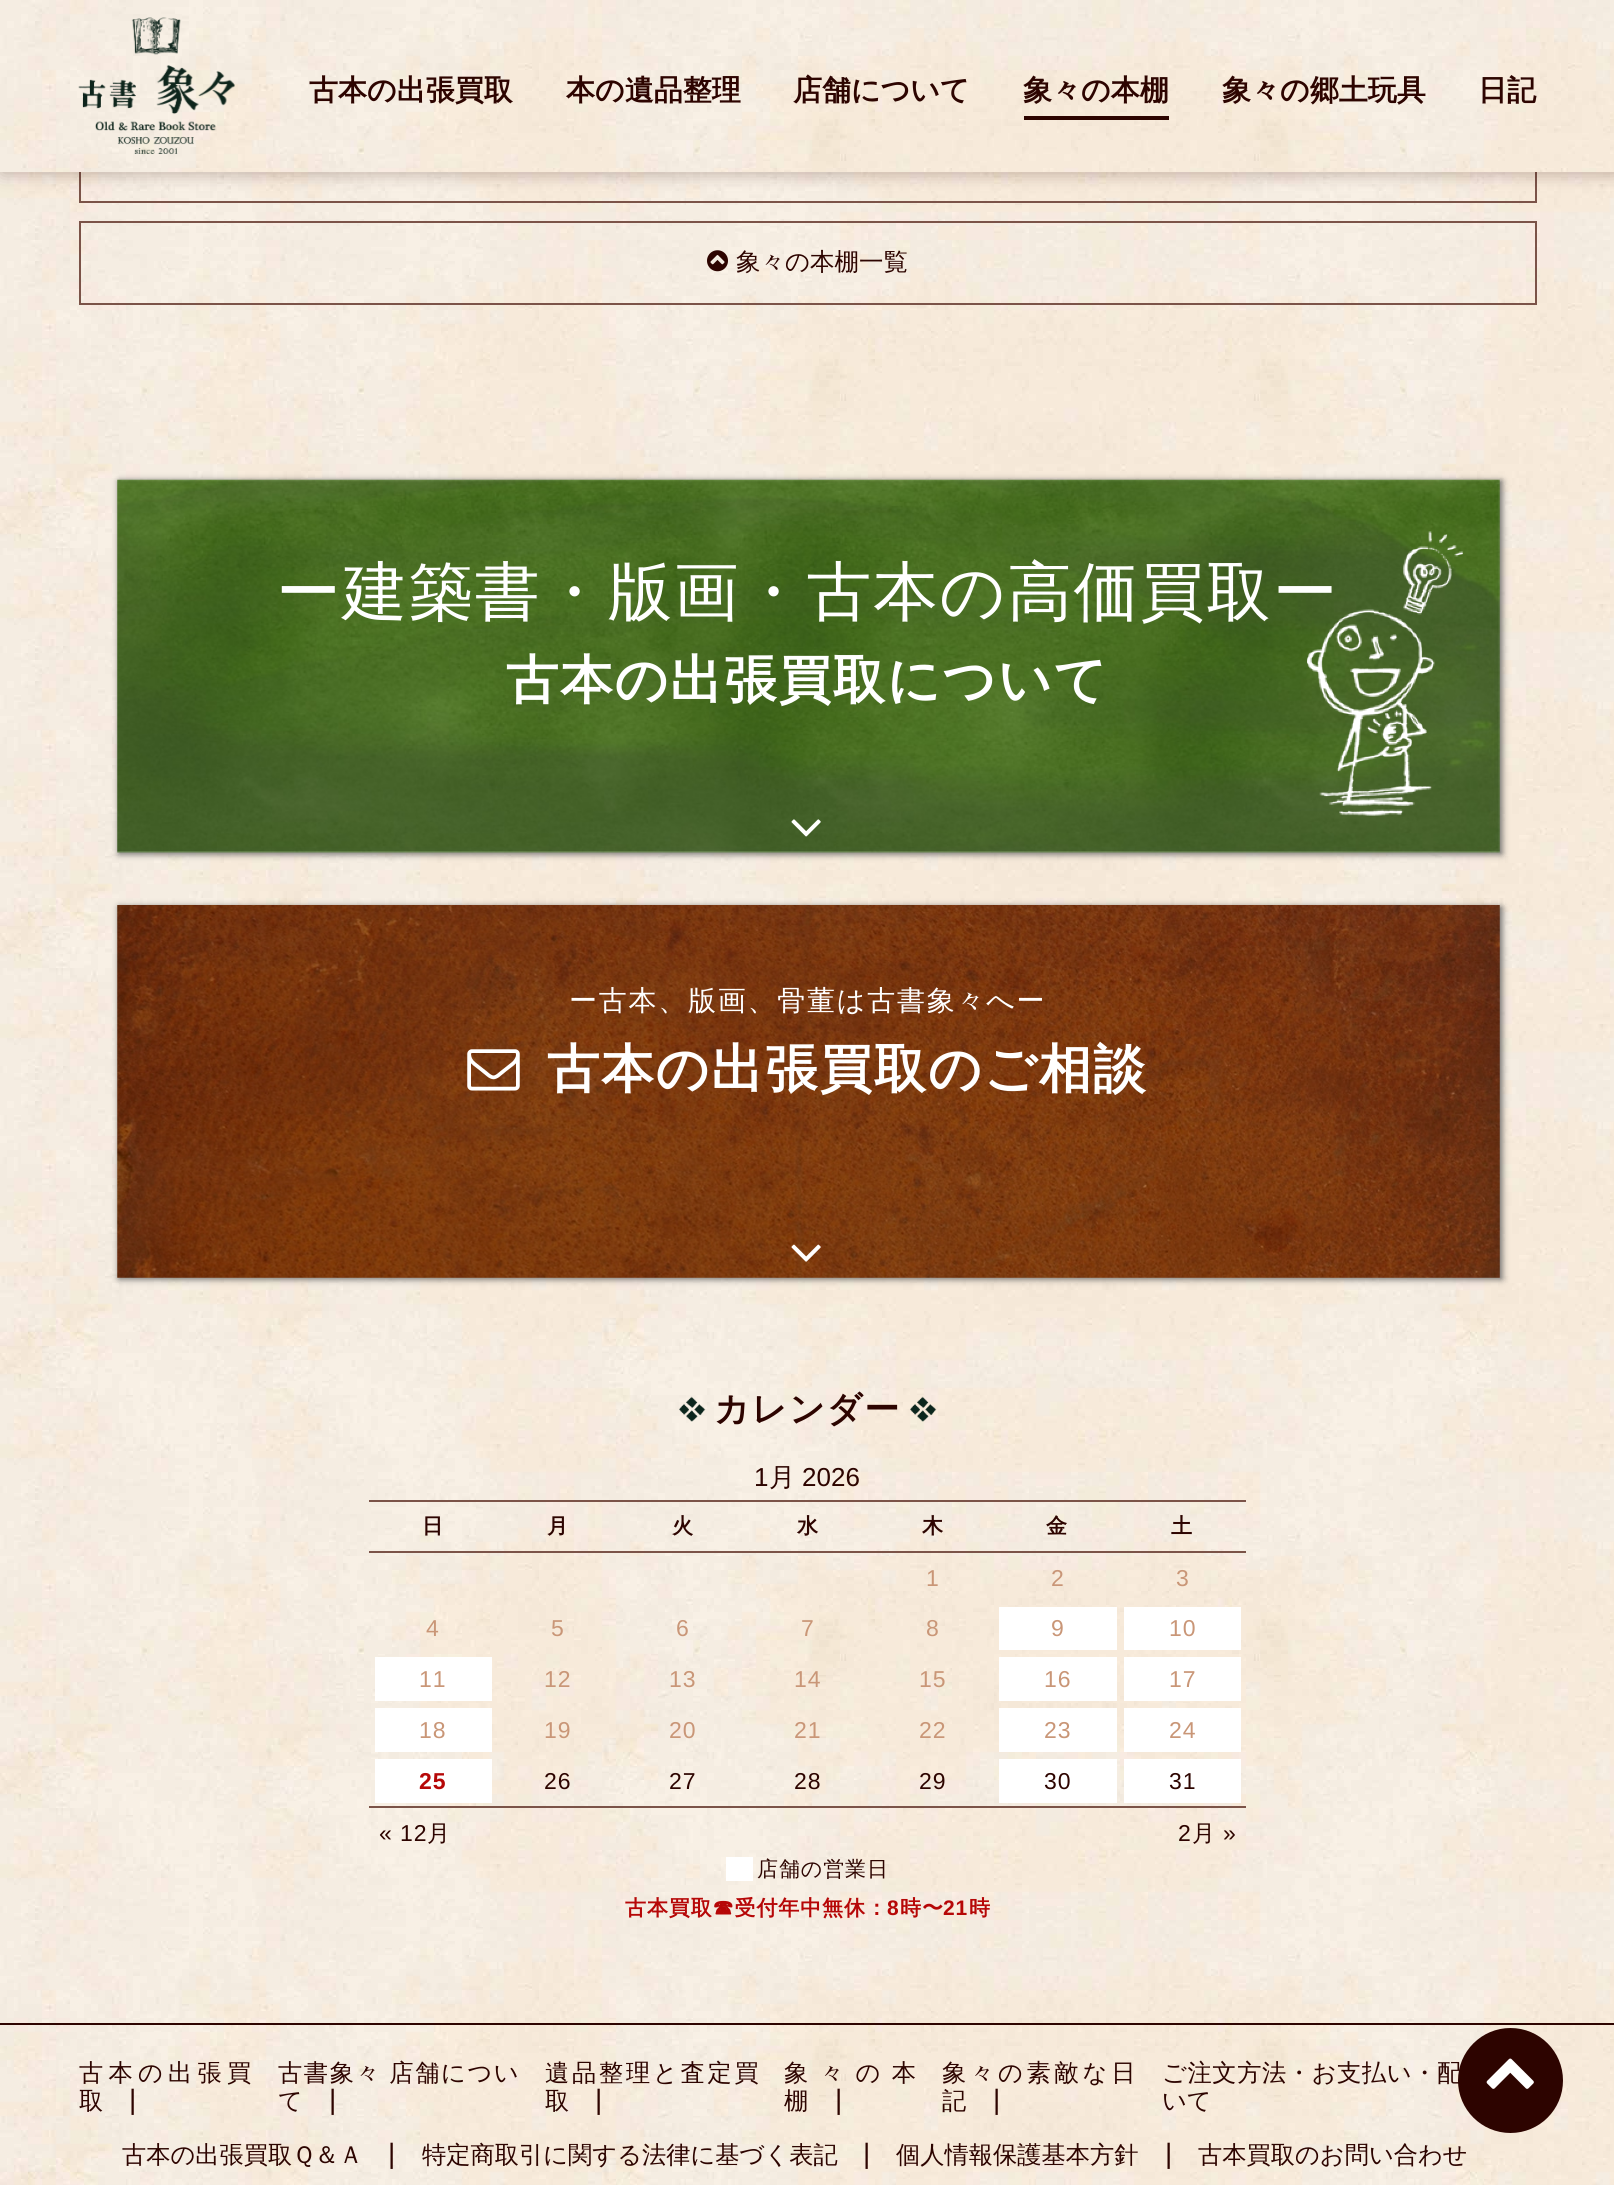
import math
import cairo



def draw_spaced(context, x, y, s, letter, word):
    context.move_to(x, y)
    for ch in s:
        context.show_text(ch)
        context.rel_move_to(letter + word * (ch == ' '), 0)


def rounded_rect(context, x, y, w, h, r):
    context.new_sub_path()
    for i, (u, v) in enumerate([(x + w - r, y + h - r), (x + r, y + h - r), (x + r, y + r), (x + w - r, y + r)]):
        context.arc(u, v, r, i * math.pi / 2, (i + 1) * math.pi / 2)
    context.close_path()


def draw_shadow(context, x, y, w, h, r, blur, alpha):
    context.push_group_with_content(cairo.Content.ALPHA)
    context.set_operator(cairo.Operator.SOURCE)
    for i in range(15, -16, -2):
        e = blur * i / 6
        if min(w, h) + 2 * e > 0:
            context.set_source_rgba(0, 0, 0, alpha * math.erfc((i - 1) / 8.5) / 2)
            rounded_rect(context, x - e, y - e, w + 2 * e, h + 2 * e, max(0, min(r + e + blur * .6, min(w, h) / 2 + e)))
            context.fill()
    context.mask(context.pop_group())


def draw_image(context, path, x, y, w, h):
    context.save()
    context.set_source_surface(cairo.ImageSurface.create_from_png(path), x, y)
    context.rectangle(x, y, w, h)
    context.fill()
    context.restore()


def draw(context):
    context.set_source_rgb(1, 1, 1)
    context.paint()
    draw_image(context, "images/1.png", 0, 172, 1614, 2013)
    context.rectangle(80, 122, 1456, 80)
    context.set_source_rgb(123 / 255, 83 / 255, 72 / 255)
    context.stroke()
    context.set_source_rgb(45 / 255, 5 / 255, 0)
    draw_shadow(context, 2, 2, 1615, 171, 0, 9, 0.3)
    draw_image(context, "images/2.png", 0, 0, 1614, 172)
    draw_image(context, "images/3.png", 78, 17, 157, 137)
    context.set_source_rgb(45 / 255, 4 / 255, 0)
    context.rectangle(1024, 116, 145, 4)
    context.fill()
    context.rectangle(80, 222, 1456, 82)
    context.set_source_rgb(123 / 255, 83 / 255, 72 / 255)
    context.stroke()
    draw_image(context, "images/4.png", 707, 250, 21, 22)
    context.set_source_rgb(102 / 255, 102 / 255, 102 / 255)
    draw_shadow(context, 119, 481, 1383, 373, 0, 3.5, 1)
    draw_image(context, "images/5.png", 117, 479, 1383, 374)
    draw_image(context, "images/6.png", 1307, 531, 156, 285)
    draw_image(context, "images/7.png", 791, 819, 30, 18)
    draw_shadow(context, 119, 907, 1383, 372, 0, 3.5, 1)
    draw_image(context, "images/8.png", 117, 905, 1383, 373)
    draw_image(context, "images/9.png", 467, 1049, 53, 42)
    draw_image(context, "images/10.png", 791, 1244, 30, 18)
    draw_image(context, "images/11.png", 679, 1396, 258, 26)
    context.set_source_rgb(123 / 255, 83 / 255, 72 / 255)
    context.rectangle(369, 1500, 877, 2)
    context.fill()
    context.rectangle(369, 1551, 877, 2)
    context.fill()
    context.rectangle(369, 1806, 877, 2)
    context.fill()
    context.set_source_rgb(1, 1, 1)
    context.rectangle(999, 1607, 118, 43)
    context.fill()
    context.rectangle(1124, 1607, 117, 43)
    context.fill()
    context.rectangle(375, 1657, 117, 44)
    context.fill()
    context.rectangle(999, 1657, 118, 44)
    context.fill()
    context.rectangle(1124, 1657, 117, 44)
    context.fill()
    context.rectangle(375, 1708, 117, 44)
    context.fill()
    context.rectangle(999, 1708, 118, 44)
    context.fill()
    context.rectangle(1124, 1708, 117, 44)
    context.fill()
    context.rectangle(375, 1759, 117, 44)
    context.fill()
    context.rectangle(999, 1759, 118, 44)
    context.fill()
    context.rectangle(1124, 1759, 117, 44)
    context.fill()
    context.rectangle(726, 1857, 27, 24)
    context.fill()
    context.set_source_rgb(45 / 255, 4 / 255, 0)
    context.arc(1510.5, 2080.5, 52.5, 0, 2 * math.pi)
    context.fill()
    draw_image(context, "images/12.png", 1486, 2058, 48, 31)
    context.rectangle(0, 2023, 1614, 2)
    context.fill()
    context.select_font_face("WenQuanYi Zen Hei", cairo.FontSlant.NORMAL, cairo.FontWeight.BOLD)
    context.set_font_size(29)
    context.move_to(309, 100)
    context.show_text("古本の出張買取")
    context.move_to(566, 100)
    context.show_text("本の遺品整理")
    context.move_to(793, 100)
    context.show_text("店舗について")
    context.move_to(1023, 100)
    context.show_text("象々の本棚")
    context.move_to(1222, 100)
    context.show_text("象々の郷土玩具")
    context.move_to(1478, 100)
    context.show_text("日記")
    context.select_font_face("WenQuanYi Zen Hei Medium")
    context.set_font_size(24.5)
    context.move_to(736, 270)
    context.show_text("象々の本棚一覧")
    context.set_font_size(64.6)
    context.set_source_rgb(1, 1, 1)
    draw_spaced(context, 276, 614, "ー建築書・版画・古本の高価買取ー", 1.75, 0)
    context.select_font_face("WenQuanYi Zen Hei", cairo.FontSlant.NORMAL, cairo.FontWeight.BOLD)
    context.set_font_size(52.5)
    draw_spaced(context, 506, 698, "古本の出張買取について", 1.75, 0)
    context.select_font_face("WenQuanYi Zen Hei Medium")
    context.set_font_size(28)
    draw_spaced(context, 569, 1010, "ー古本、版画、骨董は古書象々へー", 1.75, 0)
    context.select_font_face("WenQuanYi Zen Hei", cairo.FontSlant.NORMAL, cairo.FontWeight.BOLD)
    context.set_font_size(52.5)
    draw_spaced(context, 547, 1087, "古本の出張買取のご相談", 1.75, 0)
    context.set_font_size(35)
    context.set_source_rgb(45 / 255, 4 / 255, 0)
    draw_spaced(context, 714, 1421, "カレンダー", 1.75, 0)
    context.select_font_face("Liberation Sans")
    context.set_font_size(26)
    context.move_to(754, 1486)
    context.show_text("1")
    context.select_font_face("WenQuanYi Zen Hei Medium")
    context.move_to(769, 1486)
    context.show_text("月")
    context.select_font_face("Liberation Sans")
    context.move_to(802, 1486)
    context.show_text("2026")
    context.select_font_face("WenQuanYi Zen Hei", cairo.FontSlant.NORMAL, cairo.FontWeight.BOLD)
    context.set_font_size(21)
    draw_spaced(context, 422, 1533, "日", 0.9, 0)
    draw_spaced(context, 547, 1533, "月", 0.9, 0)
    draw_spaced(context, 672, 1533, "火", 0.9, 0)
    draw_spaced(context, 797, 1533, "水", 0.9, 0)
    draw_spaced(context, 922, 1533, "木", 0.9, 0)
    draw_spaced(context, 1046, 1533, "金", 0.9, 0)
    draw_spaced(context, 1171, 1533, "土", 0.9, 0)
    context.select_font_face("Liberation Sans")
    context.set_font_size(23)
    context.set_source_rgb(201 / 255, 150 / 255, 119 / 255)
    draw_spaced(context, 926, 1586, "1", 0.9, 0)
    draw_spaced(context, 1051, 1586, "2", 0.9, 0)
    draw_spaced(context, 1176, 1586, "3", 0.9, 0)
    draw_spaced(context, 426, 1636, "4", 0.9, 0)
    draw_spaced(context, 551, 1636, "5", 0.9, 0)
    draw_spaced(context, 676, 1636, "6", 0.9, 0)
    draw_spaced(context, 801, 1636, "7", 0.9, 0)
    draw_spaced(context, 926, 1636, "8", 0.9, 0)
    draw_spaced(context, 1051, 1636, "9", 0.9, 0)
    draw_spaced(context, 1169, 1636, "10", 0.9, 0)
    draw_spaced(context, 419, 1687, "11", 0.9, 0)
    draw_spaced(context, 544, 1687, "12", 0.9, 0)
    draw_spaced(context, 669, 1687, "13", 0.9, 0)
    draw_spaced(context, 794, 1687, "14", 0.9, 0)
    draw_spaced(context, 919, 1687, "15", 0.9, 0)
    draw_spaced(context, 1044, 1687, "16", 0.9, 0)
    draw_spaced(context, 1169, 1687, "17", 0.9, 0)
    draw_spaced(context, 419, 1738, "18", 0.9, 0)
    draw_spaced(context, 544, 1738, "19", 0.9, 0)
    draw_spaced(context, 669, 1738, "20", 0.9, 0)
    draw_spaced(context, 794, 1738, "21", 0.9, 0)
    draw_spaced(context, 919, 1738, "22", 0.9, 0)
    draw_spaced(context, 1044, 1738, "23", 0.9, 0)
    draw_spaced(context, 1169, 1738, "24", 0.9, 0)
    context.select_font_face("Liberation Sans", cairo.FontSlant.NORMAL, cairo.FontWeight.BOLD)
    context.set_source_rgb(182 / 255, 7 / 255, 7 / 255)
    draw_spaced(context, 419, 1789, "25", 0.9, 0)
    context.select_font_face("Liberation Sans")
    context.set_source_rgb(45 / 255, 4 / 255, 0)
    draw_spaced(context, 544, 1789, "26", 0.9, 0)
    draw_spaced(context, 669, 1789, "27", 0.9, 0)
    draw_spaced(context, 794, 1789, "28", 0.9, 0)
    draw_spaced(context, 919, 1789, "29", 0.9, 0)
    draw_spaced(context, 1044, 1789, "30", 0.9, 0)
    draw_spaced(context, 1169, 1789, "31", 0.9, 0)
    draw_spaced(context, 379, 1841, "« 12", 0.9, 0)
    context.select_font_face("WenQuanYi Zen Hei Medium")
    draw_spaced(context, 427, 1841, "月", 0.9, 0)
    context.select_font_face("Liberation Sans")
    draw_spaced(context, 1178, 1841, "2", 0.9, 0)
    context.select_font_face("WenQuanYi Zen Hei Medium")
    draw_spaced(context, 1192, 1841, "月", 0.9, 0)
    context.select_font_face("Liberation Sans")
    draw_spaced(context, 1223, 1841, "»", 0.9, 0)
    context.select_font_face("WenQuanYi Zen Hei Medium")
    context.set_font_size(21)
    draw_spaced(context, 757, 1876, "店舗の営業日", 0.9, 0)
    context.select_font_face("WenQuanYi Zen Hei", cairo.FontSlant.NORMAL, cairo.FontWeight.BOLD)
    context.set_source_rgb(182 / 255, 7 / 255, 7 / 255)
    draw_spaced(context, 625, 1915, "古本買取☎受付年中無休：", 0.9, 0)
    context.select_font_face("Liberation Sans", cairo.FontSlant.NORMAL, cairo.FontWeight.BOLD)
    draw_spaced(context, 887, 1915, "8", 0.9, 0)
    context.select_font_face("WenQuanYi Zen Hei", cairo.FontSlant.NORMAL, cairo.FontWeight.BOLD)
    draw_spaced(context, 900, 1915, "時〜", 0.9, 0)
    context.select_font_face("Liberation Sans", cairo.FontSlant.NORMAL, cairo.FontWeight.BOLD)
    draw_spaced(context, 943, 1915, "21", 0.9, 0)
    context.select_font_face("WenQuanYi Zen Hei", cairo.FontSlant.NORMAL, cairo.FontWeight.BOLD)
    draw_spaced(context, 969, 1915, "時", 0.9, 0)
    context.select_font_face("WenQuanYi Zen Hei Medium")
    context.set_font_size(24.25)
    context.set_source_rgb(45 / 255, 4 / 255, 0)
    draw_spaced(context, 79, 2081, "古本の出張買", 5.25, 0)
    context.move_to(79, 2109)
    context.show_text("取")
    context.select_font_face("Liberation Sans")
    context.set_font_size(28)
    context.move_to(129, 2109)
    context.show_text("|")
    context.select_font_face("WenQuanYi Zen Hei Medium")
    context.set_font_size(24.25)
    draw_spaced(context, 278, 2081, "古書象々 店舗につい", 1.6, -1)
    context.move_to(278, 2109)
    context.show_text("て")
    context.select_font_face("Liberation Sans")
    context.set_font_size(28)
    context.move_to(329, 2109)
    context.show_text("|")
    context.select_font_face("WenQuanYi Zen Hei Medium")
    context.set_font_size(24.25)
    draw_spaced(context, 545, 2081, "遺品整理と査定買", 2.75, 0)
    context.move_to(545, 2109)
    context.show_text("取")
    context.select_font_face("Liberation Sans")
    context.set_font_size(28)
    context.move_to(595, 2109)
    context.show_text("|")
    context.select_font_face("WenQuanYi Zen Hei Medium")
    context.set_font_size(24.25)
    draw_spaced(context, 784, 2081, "象々の本", 11.5, 0)
    context.move_to(784, 2109)
    context.show_text("棚")
    context.select_font_face("Liberation Sans")
    context.set_font_size(28)
    context.move_to(835, 2109)
    context.show_text("|")
    context.select_font_face("WenQuanYi Zen Hei Medium")
    context.set_font_size(24.25)
    draw_spaced(context, 942, 2081, "象々の素敵な日", 3.75, 0)
    context.move_to(942, 2109)
    context.show_text("記")
    context.select_font_face("Liberation Sans")
    context.set_font_size(28)
    context.move_to(993, 2109)
    context.show_text("|")
    context.select_font_face("WenQuanYi Zen Hei Medium")
    context.set_font_size(24.25)
    draw_spaced(context, 1162, 2081, "ご注文方法・お支払い・配", 0.6, 0)
    context.move_to(1162, 2109)
    context.show_text("いて")
    context.move_to(122, 2163)
    context.show_text("古本の出張買取Ｑ＆Ａ")
    context.select_font_face("Liberation Sans")
    context.set_font_size(28)
    context.move_to(388, 2163)
    context.show_text("|")
    context.select_font_face("WenQuanYi Zen Hei Medium")
    context.set_font_size(24.25)
    context.move_to(422, 2163)
    context.show_text("特定商取引に関する法律に基づく表記")
    context.select_font_face("Liberation Sans")
    context.set_font_size(28)
    context.move_to(863, 2163)
    context.show_text("|")
    context.select_font_face("WenQuanYi Zen Hei Medium")
    context.set_font_size(24.25)
    context.move_to(896, 2163)
    context.show_text("個人情報保護基本方針")
    context.select_font_face("Liberation Sans")
    context.set_font_size(28)
    context.move_to(1165, 2163)
    context.show_text("|")
    context.select_font_face("WenQuanYi Zen Hei Medium")
    context.set_font_size(24.25)
    context.move_to(1198, 2163)
    context.show_text("古本買取のお問い合わせ")


surface = cairo.ImageSurface(cairo.Format.RGB24, 1614, 2185)
context = cairo.Context(surface)
options = cairo.FontOptions()
options.set_hint_metrics(cairo.HintMetrics.OFF)
options.set_hint_style(cairo.HintStyle.NONE)
context.set_font_options(options)
context.set_miter_limit(4)
draw(context)
surface.write_to_png("out.png")
